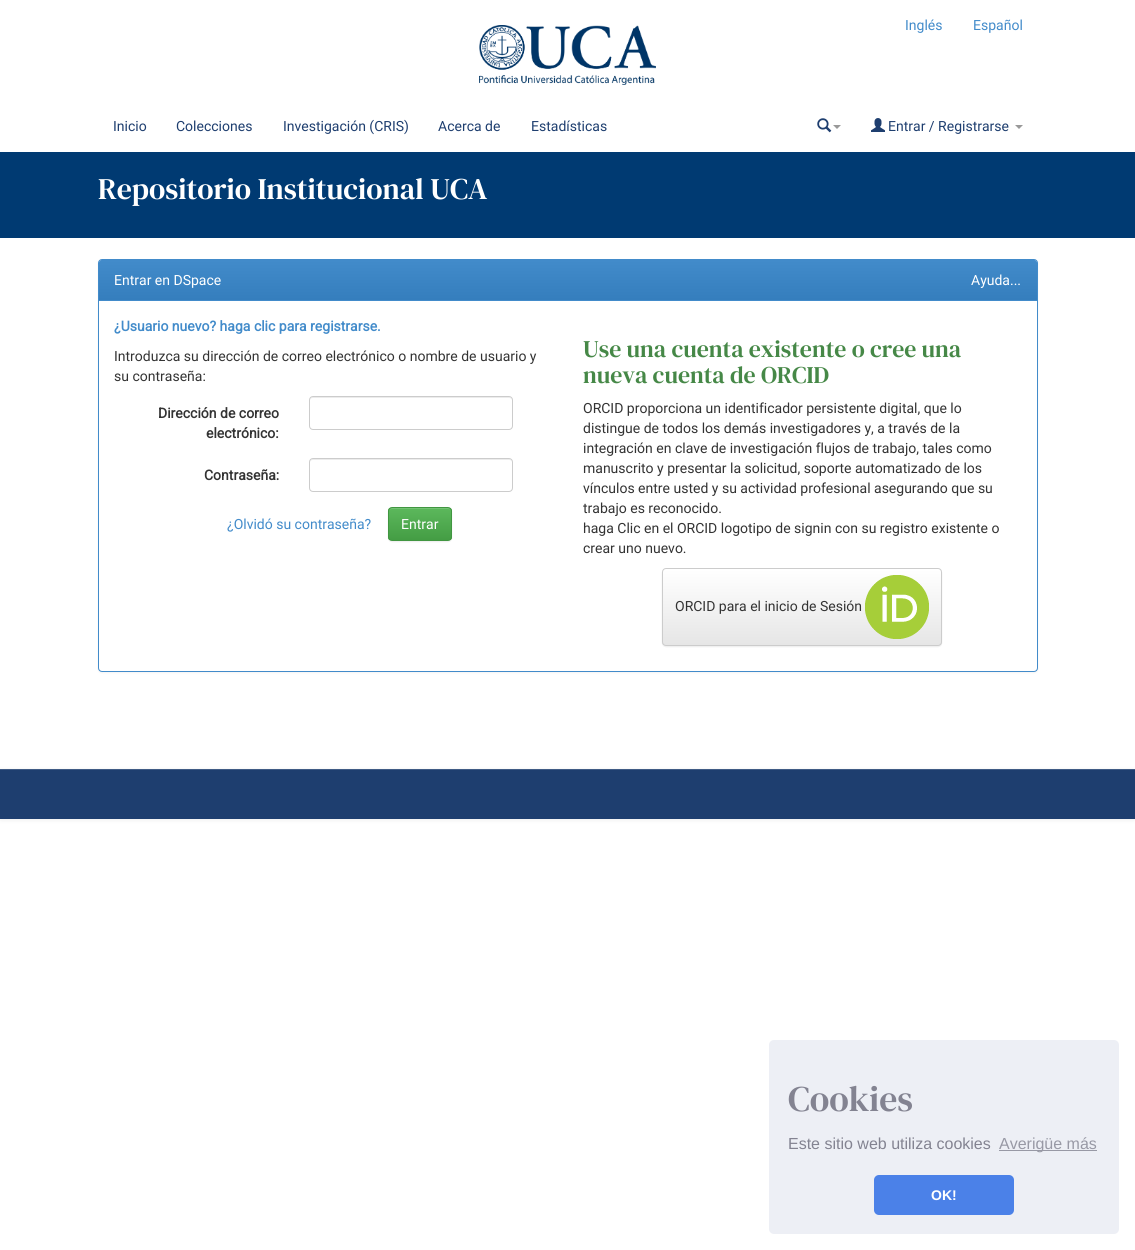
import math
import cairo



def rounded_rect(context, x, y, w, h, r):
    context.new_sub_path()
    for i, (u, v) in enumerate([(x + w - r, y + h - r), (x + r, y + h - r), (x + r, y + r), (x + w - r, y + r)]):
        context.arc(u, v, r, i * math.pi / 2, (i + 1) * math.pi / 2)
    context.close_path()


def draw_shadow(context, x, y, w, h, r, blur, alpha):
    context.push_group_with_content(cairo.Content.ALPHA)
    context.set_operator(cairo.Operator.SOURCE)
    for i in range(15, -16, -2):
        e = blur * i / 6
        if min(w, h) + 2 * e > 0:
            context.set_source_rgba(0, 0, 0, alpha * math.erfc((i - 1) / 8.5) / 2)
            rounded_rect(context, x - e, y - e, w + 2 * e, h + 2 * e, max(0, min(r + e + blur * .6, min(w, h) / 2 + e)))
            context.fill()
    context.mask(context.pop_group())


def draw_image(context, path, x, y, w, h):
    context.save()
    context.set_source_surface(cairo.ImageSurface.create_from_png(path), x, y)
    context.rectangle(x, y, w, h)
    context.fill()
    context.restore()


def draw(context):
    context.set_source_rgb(1, 1, 1)
    context.paint()
    draw_image(context, "images/1.png", 479, 25, 177, 60)
    draw_image(context, "images/2.png", 817, 118, 15, 15)
    context.set_source_rgb(153 / 255, 153 / 255, 153 / 255)
    context.new_path()
    context.move_to(833, 125)
    context.line_to(841, 125)
    context.line_to(837, 129)
    context.close_path()
    context.fill()
    draw_image(context, "images/3.png", 871, 118, 14, 14)
    context.new_path()
    context.move_to(1015, 125)
    context.line_to(1023, 125)
    context.line_to(1019, 129)
    context.close_path()
    context.fill()
    context.set_source_rgb(0, 58 / 255, 114 / 255)
    context.rectangle(0, 152, 1135, 86)
    context.fill()
    context.set_source_rgb(0, 0, 0)
    draw_shadow(context, 98, 260, 940, 413, 4, 1, 0.05)
    context.set_source_rgb(1, 1, 1)
    rounded_rect(context, 98.5, 259.5, 939, 412, 3.5)
    context.fill_preserve()
    context.set_source_rgb(66 / 255, 139 / 255, 202 / 255)
    context.set_line_width(1)
    context.stroke()
    context.new_path()
    context.move_to(102, 260)
    context.line_to(1034, 260)
    context.curve_to(1035.5, 260, 1037, 261.5, 1037, 263)
    context.line_to(1037, 301)
    context.line_to(99, 301)
    context.line_to(99, 263)
    context.curve_to(99, 261.5, 100.5, 260, 102, 260)
    context.close_path()
    context.fill()
    gradient = cairo.LinearGradient(568, 260, 568, 300)
    gradient.add_color_stop_rgba(0, 66 / 255, 139 / 255, 202 / 255, 1)
    gradient.add_color_stop_rgba(1, 53 / 255, 126 / 255, 189 / 255, 1)
    context.set_source(gradient)
    context.new_path()
    context.move_to(102, 260)
    context.line_to(1034, 260)
    context.curve_to(1035.5, 260, 1037, 261.5, 1037, 263)
    context.line_to(1037, 300)
    context.line_to(99, 300)
    context.line_to(99, 263)
    context.curve_to(99, 261.5, 100.5, 260, 102, 260)
    context.close_path()
    context.fill()
    context.set_source_rgb(236 / 255, 236 / 255, 236 / 255)
    context.new_path()
    context.move_to(313, 398)
    context.line_to(509, 398)
    context.curve_to(511, 398, 512, 399, 512, 401)
    context.curve_to(512, 399, 511, 397, 509, 397)
    context.line_to(313, 397)
    context.curve_to(311, 397, 310, 399, 310, 401)
    context.curve_to(310, 399, 311, 398, 313, 398)
    context.close_path()
    context.fill()
    rounded_rect(context, 309.5, 396.5, 203, 33, 3.5)
    context.set_source_rgb(204 / 255, 204 / 255, 204 / 255)
    context.stroke()
    context.set_source_rgb(236 / 255, 236 / 255, 236 / 255)
    context.new_path()
    context.move_to(313, 460)
    context.line_to(509, 460)
    context.curve_to(511, 460, 512, 461, 512, 463)
    context.curve_to(512, 461, 511, 459, 509, 459)
    context.line_to(313, 459)
    context.curve_to(311, 459, 310, 461, 310, 463)
    context.curve_to(310, 461, 311, 460, 313, 460)
    context.close_path()
    context.fill()
    rounded_rect(context, 309.5, 458.5, 203, 33, 3.5)
    context.set_source_rgb(204 / 255, 204 / 255, 204 / 255)
    context.stroke()
    context.set_source_rgb(0, 0, 0)
    draw_shadow(context, 388, 508, 64, 34, 4, 0.5, 0.07)
    context.save()
    rounded_rect(context, 388, 507, 64, 34, 4)
    context.clip()
    gradient = cairo.LinearGradient(420, 508, 420, 540)
    gradient.add_color_stop_rgba(0, 92 / 255, 184 / 255, 92 / 255, 1)
    gradient.add_color_stop_rgba(1, 68 / 255, 157 / 255, 68 / 255, 1)
    context.set_source(gradient)
    context.rectangle(388, 508, 64, 32)
    context.fill()
    context.restore()
    context.set_source_rgb(116 / 255, 195 / 255, 116 / 255)
    context.new_path()
    context.move_to(392, 509)
    context.line_to(448, 509)
    context.curve_to(450, 509, 451, 510, 451, 512)
    context.curve_to(451, 506, 443, 508, 439, 508)
    context.line_to(401, 508)
    context.curve_to(397, 508, 389, 506, 389, 512)
    context.curve_to(389, 510, 390, 509, 392, 509)
    context.close_path()
    context.fill()
    rounded_rect(context, 388.5, 507.5, 63, 33, 3.5)
    context.set_source_rgb(65 / 255, 150 / 255, 65 / 255)
    context.stroke()
    context.set_source_rgb(0, 0, 0)
    draw_shadow(context, 662, 569, 280, 78, 4, 0.5, 0.07)
    context.save()
    rounded_rect(context, 662, 568, 280, 78, 4)
    context.clip()
    gradient = cairo.LinearGradient(802, 569, 802, 645)
    gradient.add_color_stop_rgba(0, 1, 1, 1, 1)
    gradient.add_color_stop_rgba(1, 230 / 255, 230 / 255, 230 / 255, 1)
    context.set_source(gradient)
    context.rectangle(662, 569, 280, 76)
    context.fill()
    context.restore()
    rounded_rect(context, 662.5, 568.5, 279, 77, 3.5)
    context.set_source_rgb(204 / 255, 204 / 255, 204 / 255)
    context.stroke()
    draw_image(context, "images/4.png", 865, 575, 64, 64)
    context.set_source_rgb(0, 0, 0)
    draw_shadow(context, 0, 770, 1135, 50, 0, 2.5, 0.07)
    context.set_source_rgb(30 / 255, 62 / 255, 111 / 255)
    context.rectangle(0, 770, 1135, 49)
    context.fill()
    context.set_source_rgb(64 / 255, 91 / 255, 133 / 255)
    context.rectangle(0, 769, 1135, 1)
    context.fill()
    context.set_source_rgb(237 / 255, 239 / 255, 245 / 255)
    rounded_rect(context, 769, 1040, 350, 194, 5)
    context.fill()
    context.set_source_rgb(152 / 255, 153 / 255, 165 / 255)
    context.rectangle(999, 1150, 98, 1)
    context.fill()
    context.set_source_rgb(75 / 255, 129 / 255, 232 / 255)
    rounded_rect(context, 874, 1175, 140, 40, 5)
    context.fill()
    context.select_font_face("Roboto")
    context.set_font_size(14)
    context.set_source_rgb(66 / 255, 139 / 255, 202 / 255)
    context.move_to(905, 30)
    context.show_text("Inglés")
    context.move_to(973, 30)
    context.show_text("Español")
    context.set_source_rgb(30 / 255, 62 / 255, 111 / 255)
    context.move_to(113, 131)
    context.show_text("Inicio")
    context.move_to(176, 131)
    context.show_text("Colecciones")
    context.move_to(283, 131)
    context.show_text("Investigación (CRIS)")
    context.move_to(438, 131)
    context.show_text("Acerca de")
    context.move_to(531, 131)
    context.show_text("Estadísticas")
    context.move_to(888, 131)
    context.show_text("Entrar / Registrarse")
    context.select_font_face("DM Serif Text")
    context.set_font_size(30)
    context.set_source_rgb(1, 1, 1)
    context.move_to(98, 199)
    context.show_text("Repositorio Institucional UCA")
    context.select_font_face("Roboto")
    context.set_font_size(14)
    context.move_to(114, 285)
    context.show_text("Entrar en DSpace")
    context.move_to(971, 285)
    context.show_text("Ayuda...")
    context.select_font_face("Roboto", cairo.FontSlant.NORMAL, cairo.FontWeight.BOLD)
    context.set_source_rgb(66 / 255, 139 / 255, 202 / 255)
    context.move_to(114, 331)
    context.show_text("¿Usuario nuevo? haga clic para registrarse.")
    context.select_font_face("Roboto")
    context.set_source_rgb(51 / 255, 51 / 255, 51 / 255)
    context.move_to(114, 361)
    context.show_text("Introduzca su dirección de correo electrónico o nombre de usuario y")
    context.move_to(114, 381)
    context.show_text("su contraseña:")
    context.select_font_face("Roboto", cairo.FontSlant.NORMAL, cairo.FontWeight.BOLD)
    context.move_to(158, 418)
    context.show_text("Dirección de correo")
    context.move_to(206, 438)
    context.show_text("electrónico:")
    context.move_to(204, 480)
    context.show_text("Contraseña:")
    context.select_font_face("Roboto")
    context.set_source_rgb(66 / 255, 139 / 255, 202 / 255)
    context.move_to(227, 529)
    context.show_text("¿Olvidó su contraseña?")
    context.set_source_rgb(1, 1, 1)
    context.move_to(401, 529)
    context.show_text("Entrar")
    context.select_font_face("DM Serif Text")
    context.set_font_size(24)
    context.set_source_rgb(70 / 255, 136 / 255, 71 / 255)
    context.move_to(583, 357)
    context.show_text("Use una cuenta existente o cree una")
    context.move_to(583, 383)
    context.show_text("nueva cuenta de ORCID")
    context.select_font_face("Roboto")
    context.set_font_size(14)
    context.set_source_rgb(51 / 255, 51 / 255, 51 / 255)
    context.move_to(583, 413)
    context.show_text("ORCID proporciona un identificador persistente digital, que lo")
    context.move_to(583, 433)
    context.show_text("distingue de todos los demás investigadores y, a través de la")
    context.move_to(583, 453)
    context.show_text("integración en clave de investigación flujos de trabajo, tales como")
    context.move_to(583, 473)
    context.show_text("manuscrito y presentar la solicitud, soporte automatizado de los")
    context.move_to(583, 493)
    context.show_text("vínculos entre usted y su actividad profesional asegurando que su")
    context.move_to(583, 513)
    context.show_text("trabajo es reconocido.")
    context.move_to(583, 533)
    context.show_text("haga Clic en el ORCID logotipo de signin con su registro existente o")
    context.move_to(583, 553)
    context.show_text("crear uno nuevo.")
    context.move_to(675, 611)
    context.show_text("ORCID para el inicio de Sesión")
    context.select_font_face("DM Serif Text")
    context.set_font_size(36)
    context.set_source_rgb(131 / 255, 131 / 255, 145 / 255)
    context.move_to(788, 1111)
    context.show_text("Cookies")
    context.select_font_face("Liberation Sans")
    context.set_font_size(16)
    context.move_to(788, 1149)
    context.show_text("Este sitio web utiliza cookies")
    context.set_source_rgb(152 / 255, 153 / 255, 165 / 255)
    context.move_to(999, 1149)
    context.show_text("Averigüe más")
    context.select_font_face("Liberation Sans", cairo.FontSlant.NORMAL, cairo.FontWeight.BOLD)
    context.set_font_size(14)
    context.set_source_rgb(1, 1, 1)
    context.move_to(931, 1200)
    context.show_text("OK!")


surface = cairo.ImageSurface(cairo.Format.RGB24, 1135, 1250)
context = cairo.Context(surface)
options = cairo.FontOptions()
options.set_hint_metrics(cairo.HintMetrics.OFF)
options.set_hint_style(cairo.HintStyle.NONE)
context.set_font_options(options)
context.set_miter_limit(4)
draw(context)
surface.write_to_png("out.png")
